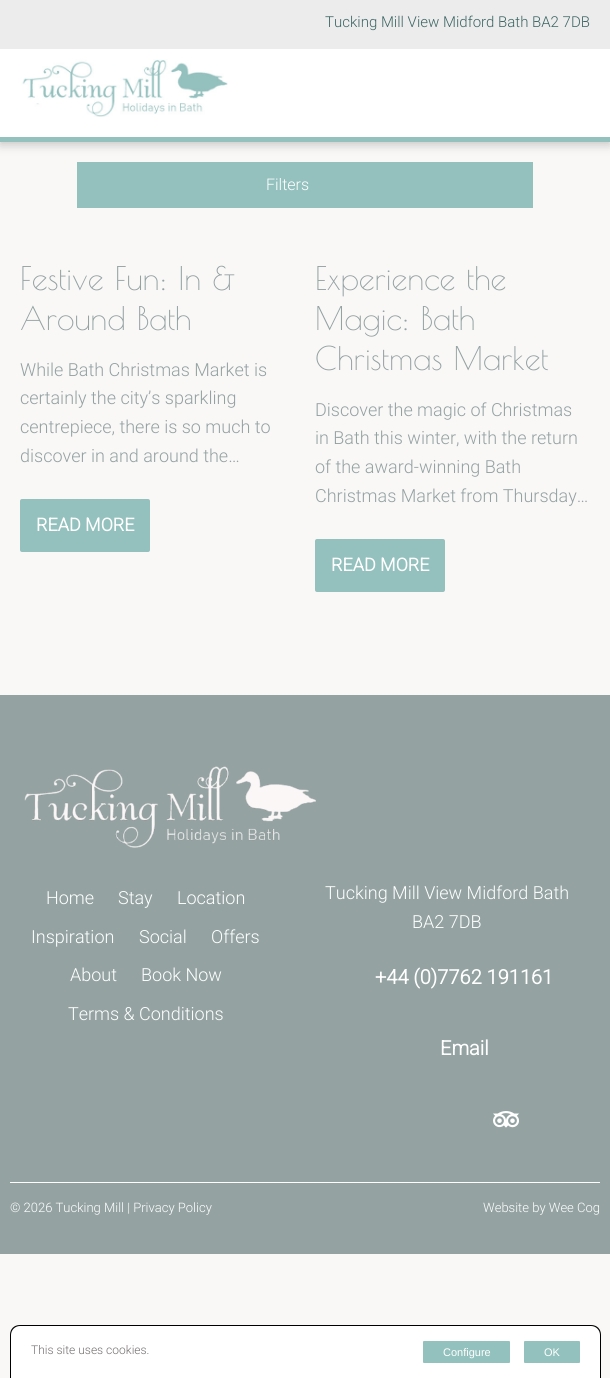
import math
import cairo



def rounded_rect(context, x, y, w, h, r):
    context.new_sub_path()
    for i, (u, v) in enumerate([(x + w - r, y + h - r), (x + r, y + h - r), (x + r, y + r), (x + w - r, y + r)]):
        context.arc(u, v, r, i * math.pi / 2, (i + 1) * math.pi / 2)
    context.close_path()


def draw_shadow(context, x, y, w, h, r, blur, alpha):
    context.push_group_with_content(cairo.Content.ALPHA)
    context.set_operator(cairo.Operator.SOURCE)
    for i in range(15, -16, -2):
        e = blur * i / 6
        if min(w, h) + 2 * e > 0:
            context.set_source_rgba(0, 0, 0, alpha * math.erfc((i - 1) / 8.5) / 2)
            rounded_rect(context, x - e, y - e, w + 2 * e, h + 2 * e, max(0, min(r + e + blur * .6, min(w, h) / 2 + e)))
            context.fill()
    context.mask(context.pop_group())


def draw_image(context, path, x, y, w, h):
    context.save()
    context.set_source_surface(cairo.ImageSurface.create_from_png(path), x, y)
    context.rectangle(x, y, w, h)
    context.fill()
    context.restore()


def draw(context):
    context.set_source_rgb(249 / 255, 248 / 255, 247 / 255)
    context.paint()
    context.set_source_rgb(0, 0, 0)
    draw_shadow(context, 0, 3, 610, 142, 0, 5, 0.2)
    context.set_source_rgb(1, 1, 1)
    context.rectangle(0, 49, 610, 88)
    context.fill()
    context.set_source_rgb(148 / 255, 193 / 255, 190 / 255)
    context.rectangle(0, 137, 610, 5)
    context.fill()
    context.set_source_rgb(236 / 255, 236 / 255, 236 / 255)
    context.rectangle(0, 0, 610, 49)
    context.fill()
    draw_image(context, "images/1.png", 21, 59, 207, 58)
    context.set_source_rgb(148 / 255, 193 / 255, 190 / 255)
    context.rectangle(77, 162, 456, 46)
    context.fill()
    rounded_rect(context, 20, 499, 130, 53, 2)
    context.fill()
    rounded_rect(context, 315, 539, 130, 53, 2)
    context.fill()
    context.set_source_rgb(148 / 255, 162 / 255, 162 / 255)
    context.rectangle(0, 695, 610, 559)
    context.fill()
    draw_image(context, "images/2.png", 24, 766, 292, 82)
    draw_image(context, "images/3.png", 493, 1111, 26, 17)
    context.set_source_rgb(1, 1, 1)
    context.rectangle(10, 1182, 590, 1)
    context.fill()
    context.new_path()
    context.move_to(20, 1325)
    context.line_to(591, 1325)
    context.curve_to(596.5, 1325, 601, 1329.5, 601, 1335)
    context.line_to(601, 1378)
    context.line_to(10, 1378)
    context.line_to(10, 1335)
    context.curve_to(10, 1329.5, 14.5, 1325, 20, 1325)
    context.close_path()
    context.fill()
    context.set_source_rgb(0, 0, 0)
    context.set_fill_rule(cairo.FillRule.EVEN_ODD)
    context.new_path()
    context.move_to(20, 1325)
    context.line_to(591, 1325)
    context.curve_to(597, 1325, 601, 1329, 601, 1335)
    context.line_to(601, 1378)
    context.line_to(10, 1378)
    context.line_to(10, 1335)
    context.curve_to(10, 1329, 14, 1325, 20, 1325)
    context.close_path()
    context.move_to(20, 1326)
    context.line_to(591, 1326)
    context.curve_to(596, 1326, 600, 1330, 600, 1335)
    context.line_to(600, 1378)
    context.line_to(11, 1378)
    context.line_to(11, 1335)
    context.curve_to(11, 1330, 15, 1326, 20, 1326)
    context.close_path()
    context.fill()
    context.set_source_rgb(147 / 255, 193 / 255, 189 / 255)
    rounded_rect(context, 423, 1341, 87, 22, 1)
    context.fill()
    rounded_rect(context, 524, 1341, 56, 22, 1)
    context.fill()
    context.select_font_face("Roboto Light")
    context.set_font_size(15)
    context.set_source_rgb(60 / 255, 102 / 255, 99 / 255)
    context.move_to(325, 27)
    context.show_text("Tucking Mill View Midford Bath BA2 7DB")
    context.set_font_size(16)
    context.set_source_rgb(1, 1, 1)
    context.move_to(266, 190)
    context.show_text("Filters")
    context.select_font_face("Poiret One")
    context.set_font_size(32)
    context.set_source_rgb(148 / 255, 162 / 255, 162 / 255)
    context.move_to(20, 290)
    context.show_text("Festive Fun: In &")
    context.move_to(20, 330)
    context.show_text("Around Bath")
    context.select_font_face("Roboto Light")
    context.set_font_size(18)
    context.move_to(20, 376)
    context.show_text("While Bath Christmas Market is")
    context.move_to(20, 404)
    context.show_text("certainly the city’s sparkling")
    context.move_to(20, 433)
    context.show_text("centrepiece, there is so much to")
    context.move_to(20, 462)
    context.show_text("discover in and around the…")
    context.select_font_face("Roboto", cairo.FontSlant.NORMAL, cairo.FontWeight.BOLD)
    context.set_source_rgb(1, 1, 1)
    context.move_to(36, 531)
    context.show_text("READ MORE")
    context.select_font_face("Poiret One")
    context.set_font_size(32)
    context.set_source_rgb(148 / 255, 162 / 255, 162 / 255)
    context.move_to(315, 290)
    context.show_text("Experience the")
    context.move_to(315, 330)
    context.show_text("Magic: Bath")
    context.move_to(315, 370)
    context.show_text("Christmas Market")
    context.select_font_face("Roboto Light")
    context.set_font_size(18)
    context.move_to(315, 416)
    context.show_text("Discover the magic of Christmas")
    context.move_to(315, 444)
    context.show_text("in Bath this winter, with the return")
    context.move_to(315, 473)
    context.show_text("of the award-winning Bath")
    context.move_to(315, 502)
    context.show_text("Christmas Market from Thursday…")
    context.select_font_face("Roboto", cairo.FontSlant.NORMAL, cairo.FontWeight.BOLD)
    context.set_source_rgb(1, 1, 1)
    context.move_to(331, 571)
    context.show_text("READ MORE")
    context.select_font_face("Roboto Light")
    context.move_to(46, 904)
    context.show_text("Home")
    context.move_to(118, 904)
    context.show_text("Stay")
    context.move_to(177, 904)
    context.show_text("Location")
    context.move_to(31, 943)
    context.show_text("Inspiration")
    context.move_to(139, 943)
    context.show_text("Social")
    context.move_to(211, 943)
    context.show_text("Offers")
    context.move_to(70, 981)
    context.show_text("About")
    context.move_to(141, 981)
    context.show_text("Book Now")
    context.move_to(68, 1020)
    context.show_text("Terms & Conditions")
    context.move_to(325, 899)
    context.show_text("Tucking Mill View Midford Bath")
    context.move_to(412, 928)
    context.show_text("BA2 7DB")
    context.select_font_face("Roboto", cairo.FontSlant.NORMAL, cairo.FontWeight.BOLD)
    context.set_font_size(20)
    context.move_to(375, 984)
    context.show_text("+44 (0)7762 191161")
    context.move_to(440, 1055)
    context.show_text("Email")
    context.select_font_face("Roboto Light")
    context.set_font_size(13)
    context.move_to(10, 1212)
    context.show_text("© 2026 Tucking Mill | Privacy Policy")
    context.move_to(483, 1212)
    context.show_text("Website by Wee Cog")
    context.set_font_size(12)
    context.set_source_rgb(115 / 255, 110 / 255, 110 / 255)
    context.move_to(31, 1354)
    context.show_text("This site uses cookies.")
    context.select_font_face("Liberation Sans")
    context.set_font_size(11)
    context.set_source_rgb(1, 1, 1)
    context.move_to(443, 1356)
    context.show_text("Configure")
    context.move_to(544, 1356)
    context.show_text("OK")


surface = cairo.ImageSurface(cairo.Format.RGB24, 610, 1378)
context = cairo.Context(surface)
options = cairo.FontOptions()
options.set_hint_metrics(cairo.HintMetrics.OFF)
options.set_hint_style(cairo.HintStyle.NONE)
context.set_font_options(options)
context.set_miter_limit(4)
draw(context)
surface.write_to_png("out.png")
